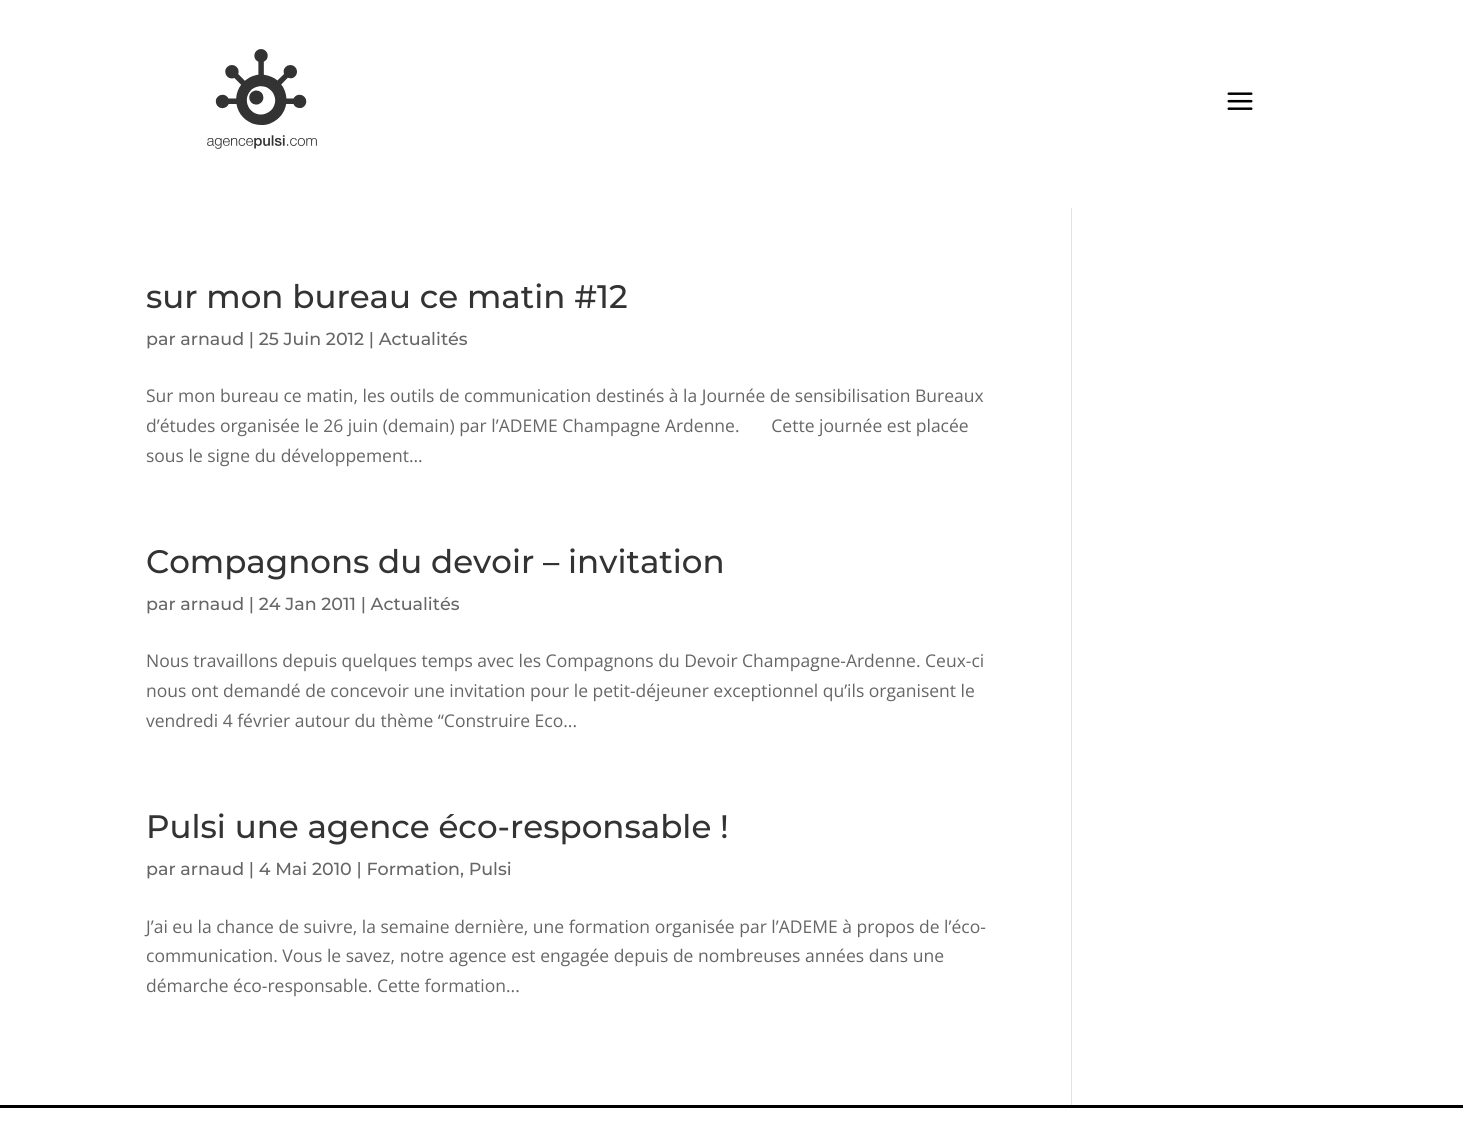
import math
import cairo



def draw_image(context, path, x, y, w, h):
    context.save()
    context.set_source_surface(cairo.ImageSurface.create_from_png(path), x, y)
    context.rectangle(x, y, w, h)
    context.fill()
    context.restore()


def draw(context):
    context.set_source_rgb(1, 1, 1)
    context.paint()
    draw_image(context, "images/1.png", 207, 49, 110, 100)
    draw_image(context, "images/2.png", 1227, 92, 26, 18)
    context.set_source_rgb(226 / 255, 226 / 255, 226 / 255)
    context.rectangle(1071, 208, 1, 897)
    context.fill()
    context.set_source_rgb(0, 0, 0)
    context.rectangle(0, 1105, 1463, 3)
    context.fill()
    context.select_font_face("Montserrat Medium")
    context.set_font_size(32.5)
    context.set_source_rgb(51 / 255, 51 / 255, 51 / 255)
    context.move_to(146, 308)
    context.show_text("sur mon bureau ce matin #12")
    context.set_font_size(17.5)
    context.set_source_rgb(102 / 255, 102 / 255, 102 / 255)
    context.move_to(146, 345)
    context.show_text("par arnaud | 25 Juin 2012 | Actualités")
    context.select_font_face("Open Sans")
    context.move_to(146, 402)
    context.show_text("Sur mon bureau ce matin, les outils de communication destinés à la Journée de sensibilisation Bureaux")
    context.move_to(146, 432)
    context.show_text("d’études organisée le 26 juin (demain) par l’ADEME Champagne Ardenne.       Cette journée est placée")
    context.move_to(146, 462)
    context.show_text("sous le signe du développement...")
    context.select_font_face("Montserrat Medium")
    context.set_font_size(32.5)
    context.set_source_rgb(51 / 255, 51 / 255, 51 / 255)
    context.move_to(146, 573)
    context.show_text("Compagnons du devoir – invitation")
    context.set_font_size(17.5)
    context.set_source_rgb(102 / 255, 102 / 255, 102 / 255)
    context.move_to(146, 610)
    context.show_text("par arnaud | 24 Jan 2011 | Actualités")
    context.select_font_face("Open Sans")
    context.move_to(146, 667)
    context.show_text("Nous travaillons depuis quelques temps avec les Compagnons du Devoir Champagne-Ardenne. Ceux-ci")
    context.move_to(146, 697)
    context.show_text("nous ont demandé de concevoir une invitation pour le petit-déjeuner exceptionnel qu’ils organisent le")
    context.move_to(146, 727)
    context.show_text("vendredi 4 février autour du thème “Construire Eco...")
    context.select_font_face("Montserrat Medium")
    context.set_font_size(32.5)
    context.set_source_rgb(51 / 255, 51 / 255, 51 / 255)
    context.move_to(146, 838)
    context.show_text("Pulsi une agence éco-responsable !")
    context.set_font_size(17.5)
    context.set_source_rgb(102 / 255, 102 / 255, 102 / 255)
    context.move_to(146, 875)
    context.show_text("par arnaud | 4 Mai 2010 | Formation, Pulsi")
    context.select_font_face("Open Sans")
    context.move_to(146, 933)
    context.show_text("J’ai eu la chance de suivre, la semaine dernière, une formation organisée par l’ADEME à propos de l’éco-")
    context.move_to(146, 962)
    context.show_text("communication. Vous le savez, notre agence est engagée depuis de nombreuses années dans une")
    context.move_to(146, 992)
    context.show_text("démarche éco-responsable. Cette formation...")


surface = cairo.ImageSurface(cairo.Format.RGB24, 1463, 1125)
context = cairo.Context(surface)
options = cairo.FontOptions()
options.set_hint_metrics(cairo.HintMetrics.OFF)
options.set_hint_style(cairo.HintStyle.NONE)
context.set_font_options(options)
context.set_miter_limit(4)
draw(context)
surface.write_to_png("out.png")
